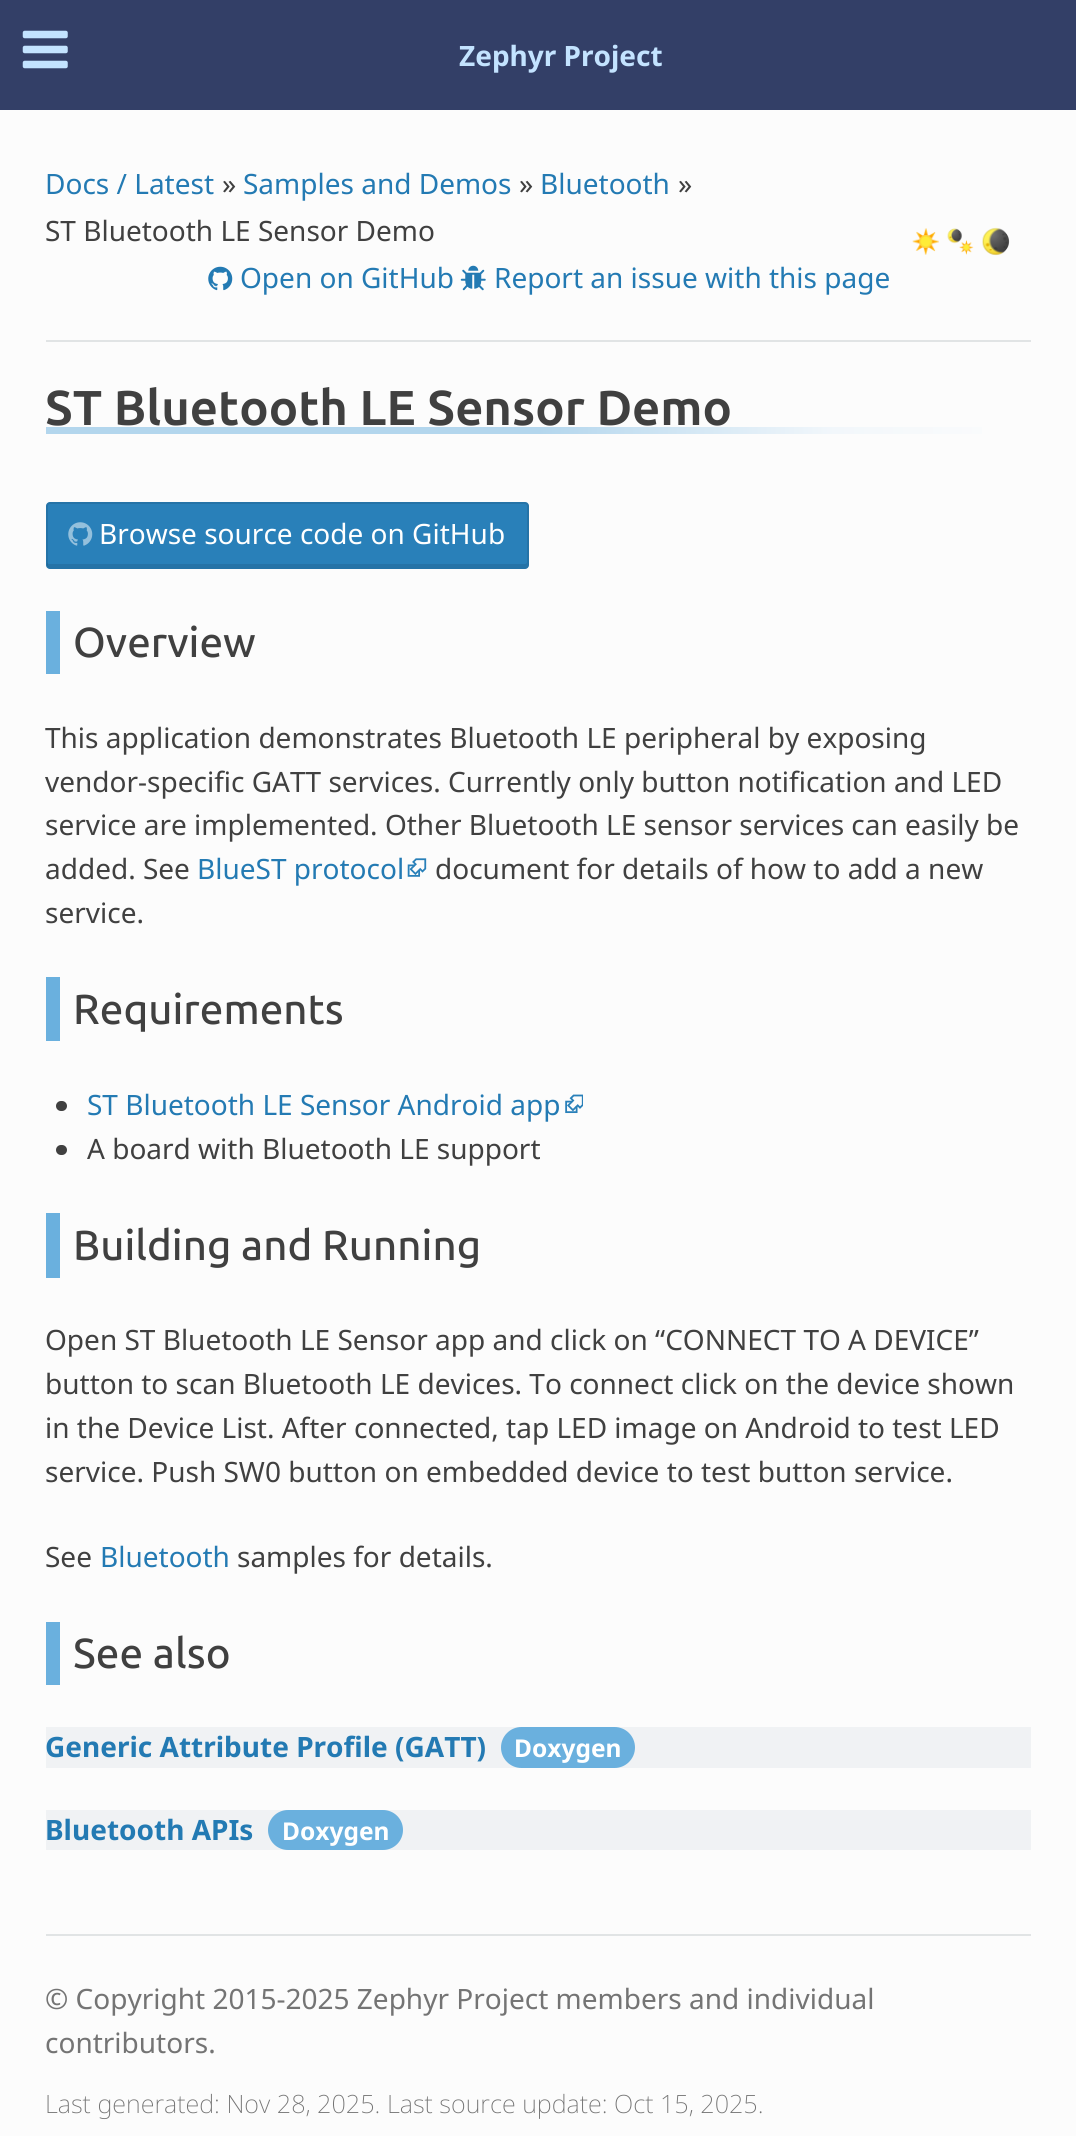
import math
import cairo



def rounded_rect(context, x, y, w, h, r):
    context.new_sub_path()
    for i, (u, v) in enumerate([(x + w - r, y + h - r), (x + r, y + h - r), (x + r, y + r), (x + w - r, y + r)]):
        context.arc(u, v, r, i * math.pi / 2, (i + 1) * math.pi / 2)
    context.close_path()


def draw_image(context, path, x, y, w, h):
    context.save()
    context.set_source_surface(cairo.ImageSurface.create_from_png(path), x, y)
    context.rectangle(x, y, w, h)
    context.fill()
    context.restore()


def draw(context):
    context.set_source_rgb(252 / 255, 252 / 255, 252 / 255)
    context.paint()
    context.set_source_rgb(51 / 255, 63 / 255, 103 / 255)
    context.rectangle(0, 0, 1076, 110)
    context.fill()
    draw_image(context, "images/1.png", 22, 30, 46, 39)
    draw_image(context, "images/2.png", 912, 228, 27, 27)
    draw_image(context, "images/3.png", 947, 228, 27, 27)
    draw_image(context, "images/4.png", 982, 227, 28, 29)
    draw_image(context, "images/5.png", 208, 266, 25, 25)
    draw_image(context, "images/6.png", 460, 265, 26, 26)
    context.set_source_rgb(225 / 255, 228 / 255, 229 / 255)
    context.rectangle(46, 340, 985, 2)
    context.fill()
    gradient = cairo.LinearGradient(46, 431, 1031, 430)
    gradient.add_color_stop_rgba(0, 179 / 255, 214 / 255, 237 / 255, 1)
    gradient.add_color_stop_rgba(0.5, 179 / 255, 214 / 255, 237 / 255, 1)
    gradient.add_color_stop_rgba(0.8, 242 / 255, 247 / 255, 251 / 255, 1)
    gradient.add_color_stop_rgba(1, 252 / 255, 252 / 255, 252 / 255, 1)
    context.set_source(gradient)
    context.rectangle(46, 427, 936, 7)
    context.fill()
    context.set_source_rgb(41 / 255, 128 / 255, 185 / 255)
    rounded_rect(context, 46, 502, 483, 67, 4)
    context.fill()
    context.set_source_rgb(37 / 255, 115 / 255, 167 / 255)
    context.new_path()
    context.move_to(47, 562)
    context.line_to(47, 565)
    context.curve_to(47, 566, 48, 567, 49, 567)
    context.line_to(525, 567)
    context.curve_to(526, 567, 527, 566, 527, 565)
    context.line_to(527, 562)
    context.curve_to(527, 563, 526, 564, 525, 564)
    context.line_to(49, 564)
    context.curve_to(48, 564, 47, 563, 47, 562)
    context.close_path()
    context.fill()
    rounded_rect(context, 47, 503, 481, 65, 3)
    context.set_source_rgba(0, 0, 0, 0.1)
    context.stroke()
    draw_image(context, "images/7.png", 68, 522, 25, 24)
    context.set_source_rgb(106 / 255, 176 / 255, 222 / 255)
    context.rectangle(46, 611, 14, 63)
    context.fill()
    draw_image(context, "images/8.png", 407, 858, 20, 19)
    context.rectangle(46, 977, 14, 64)
    context.fill()
    context.set_source_rgb(64 / 255, 64 / 255, 64 / 255)
    rounded_rect(context, 56, 1101, 11, 10, 5)
    context.fill()
    draw_image(context, "images/9.png", 565, 1094, 18, 20)
    rounded_rect(context, 56, 1145, 11, 10, 5)
    context.fill()
    context.set_source_rgb(106 / 255, 176 / 255, 222 / 255)
    context.rectangle(46, 1213, 14, 65)
    context.fill()
    context.rectangle(46, 1622, 14, 63)
    context.fill()
    context.set_source_rgb(240 / 255, 242 / 255, 244 / 255)
    context.rectangle(46, 1727, 985, 41)
    context.fill()
    context.set_source_rgb(106 / 255, 176 / 255, 222 / 255)
    rounded_rect(context, 501, 1727, 134, 41, 20.5)
    context.fill()
    context.set_source_rgb(240 / 255, 242 / 255, 244 / 255)
    context.rectangle(46, 1810, 985, 40)
    context.fill()
    context.set_source_rgb(106 / 255, 176 / 255, 222 / 255)
    rounded_rect(context, 268, 1810, 135, 40, 20)
    context.fill()
    context.set_source_rgb(225 / 255, 228 / 255, 229 / 255)
    context.rectangle(46, 1934, 985, 2)
    context.fill()
    context.select_font_face("Noto Sans", cairo.FontSlant.NORMAL, cairo.FontWeight.BOLD)
    context.set_font_size(28)
    context.set_source_rgb(195 / 255, 227 / 255, 1)
    context.move_to(459, 66)
    context.show_text("Zephyr Project")
    context.select_font_face("Noto Sans")
    context.set_source_rgb(35 / 255, 122 / 255, 179 / 255)
    context.move_to(45, 194)
    context.show_text("Docs / Latest")
    context.set_source_rgb(64 / 255, 64 / 255, 64 / 255)
    context.move_to(222, 194)
    context.show_text("»")
    context.set_source_rgb(35 / 255, 122 / 255, 179 / 255)
    context.move_to(243, 194)
    context.show_text("Samples and Demos")
    context.set_source_rgb(64 / 255, 64 / 255, 64 / 255)
    context.move_to(519, 194)
    context.show_text("»")
    context.set_source_rgb(35 / 255, 122 / 255, 179 / 255)
    context.move_to(540, 194)
    context.show_text("Bluetooth")
    context.set_source_rgb(64 / 255, 64 / 255, 64 / 255)
    context.move_to(678, 194)
    context.show_text("»")
    context.move_to(45, 241)
    context.show_text("ST Bluetooth LE Sensor Demo")
    context.set_source_rgb(35 / 255, 122 / 255, 179 / 255)
    context.move_to(240, 288)
    context.show_text("Open on GitHub")
    context.move_to(494, 288)
    context.show_text("Report an issue with this page")
    context.select_font_face("Ubuntu", cairo.FontSlant.NORMAL, cairo.FontWeight.BOLD)
    context.set_font_size(49)
    context.set_source_rgb(64 / 255, 64 / 255, 64 / 255)
    context.move_to(45, 425)
    context.show_text("ST Bluetooth LE Sensor Demo")
    context.select_font_face("Noto Sans")
    context.set_font_size(28)
    context.set_source_rgb(1, 1, 1)
    context.move_to(99, 544)
    context.show_text("Browse source code on GitHub")
    context.select_font_face("Ubuntu Medium")
    context.set_font_size(42)
    context.set_source_rgb(64 / 255, 64 / 255, 64 / 255)
    context.move_to(73, 657)
    context.show_text("Overview")
    context.select_font_face("Noto Sans")
    context.set_font_size(28)
    context.move_to(45, 748)
    context.show_text("This application demonstrates Bluetooth LE peripheral by exposing")
    context.move_to(45, 792)
    context.show_text("vendor-specific GATT services. Currently only button notification and LED")
    context.move_to(45, 835)
    context.show_text("service are implemented. Other Bluetooth LE sensor services can easily be")
    context.move_to(45, 879)
    context.show_text("added. See")
    context.set_source_rgb(35 / 255, 122 / 255, 179 / 255)
    context.move_to(197, 879)
    context.show_text("BlueST protocol")
    context.set_source_rgb(64 / 255, 64 / 255, 64 / 255)
    context.move_to(435, 879)
    context.show_text("document for details of how to add a new")
    context.move_to(45, 923)
    context.show_text("service.")
    context.select_font_face("Ubuntu Medium")
    context.set_font_size(42)
    context.move_to(73, 1024)
    context.show_text("Requirements")
    context.select_font_face("Noto Sans")
    context.set_font_size(28)
    context.set_source_rgb(35 / 255, 122 / 255, 179 / 255)
    context.move_to(87, 1115)
    context.show_text("ST Bluetooth LE Sensor Android app")
    context.set_source_rgb(64 / 255, 64 / 255, 64 / 255)
    context.move_to(87, 1159)
    context.show_text("A board with Bluetooth LE support")
    context.select_font_face("Ubuntu Medium")
    context.set_font_size(42)
    context.move_to(73, 1260)
    context.show_text("Building and Running")
    context.select_font_face("Noto Sans")
    context.set_font_size(28)
    context.move_to(45, 1350)
    context.show_text("Open ST Bluetooth LE Sensor app and click on “CONNECT TO A DEVICE”")
    context.move_to(45, 1394)
    context.show_text("button to scan Bluetooth LE devices. To connect click on the device shown")
    context.move_to(45, 1438)
    context.show_text("in the Device List. After connected, tap LED image on Android to test LED")
    context.move_to(45, 1482)
    context.show_text("service. Push SW0 button on embedded device to test button service.")
    context.move_to(45, 1567)
    context.show_text("See")
    context.set_source_rgb(35 / 255, 122 / 255, 179 / 255)
    context.move_to(100, 1567)
    context.show_text("Bluetooth")
    context.set_source_rgb(64 / 255, 64 / 255, 64 / 255)
    context.move_to(237, 1567)
    context.show_text("samples for details.")
    context.select_font_face("Ubuntu Medium")
    context.set_font_size(42)
    context.move_to(73, 1668)
    context.show_text("See also")
    context.select_font_face("Noto Sans", cairo.FontSlant.NORMAL, cairo.FontWeight.BOLD)
    context.set_font_size(28)
    context.set_source_rgb(35 / 255, 122 / 255, 179 / 255)
    context.move_to(45, 1757)
    context.show_text("Generic Attribute Profile (GATT)")
    context.set_font_size(24.5)
    context.set_source_rgb(1, 1, 1)
    context.move_to(514, 1757)
    context.show_text("Doxygen")
    context.set_font_size(28)
    context.set_source_rgb(35 / 255, 122 / 255, 179 / 255)
    context.move_to(45, 1840)
    context.show_text("Bluetooth APIs")
    context.set_font_size(24.5)
    context.set_source_rgb(1, 1, 1)
    context.move_to(282, 1840)
    context.show_text("Doxygen")
    context.select_font_face("Noto Sans")
    context.set_font_size(28)
    context.set_source_rgb(116 / 255, 116 / 255, 116 / 255)
    context.move_to(45, 2009)
    context.show_text("© Copyright 2015-2025 Zephyr Project members and individual")
    context.move_to(45, 2053)
    context.show_text("contributors.")
    context.select_font_face("Noto Sans ExtraLight")
    context.set_font_size(25.2)
    context.move_to(45, 2113)
    context.show_text("Last generated: Nov 28, 2025. Last source update: Oct 15, 2025.")


surface = cairo.ImageSurface(cairo.Format.RGB24, 1076, 2136)
context = cairo.Context(surface)
options = cairo.FontOptions()
options.set_hint_metrics(cairo.HintMetrics.OFF)
options.set_hint_style(cairo.HintStyle.NONE)
context.set_font_options(options)
context.set_miter_limit(4)
draw(context)
surface.write_to_png("out.png")
